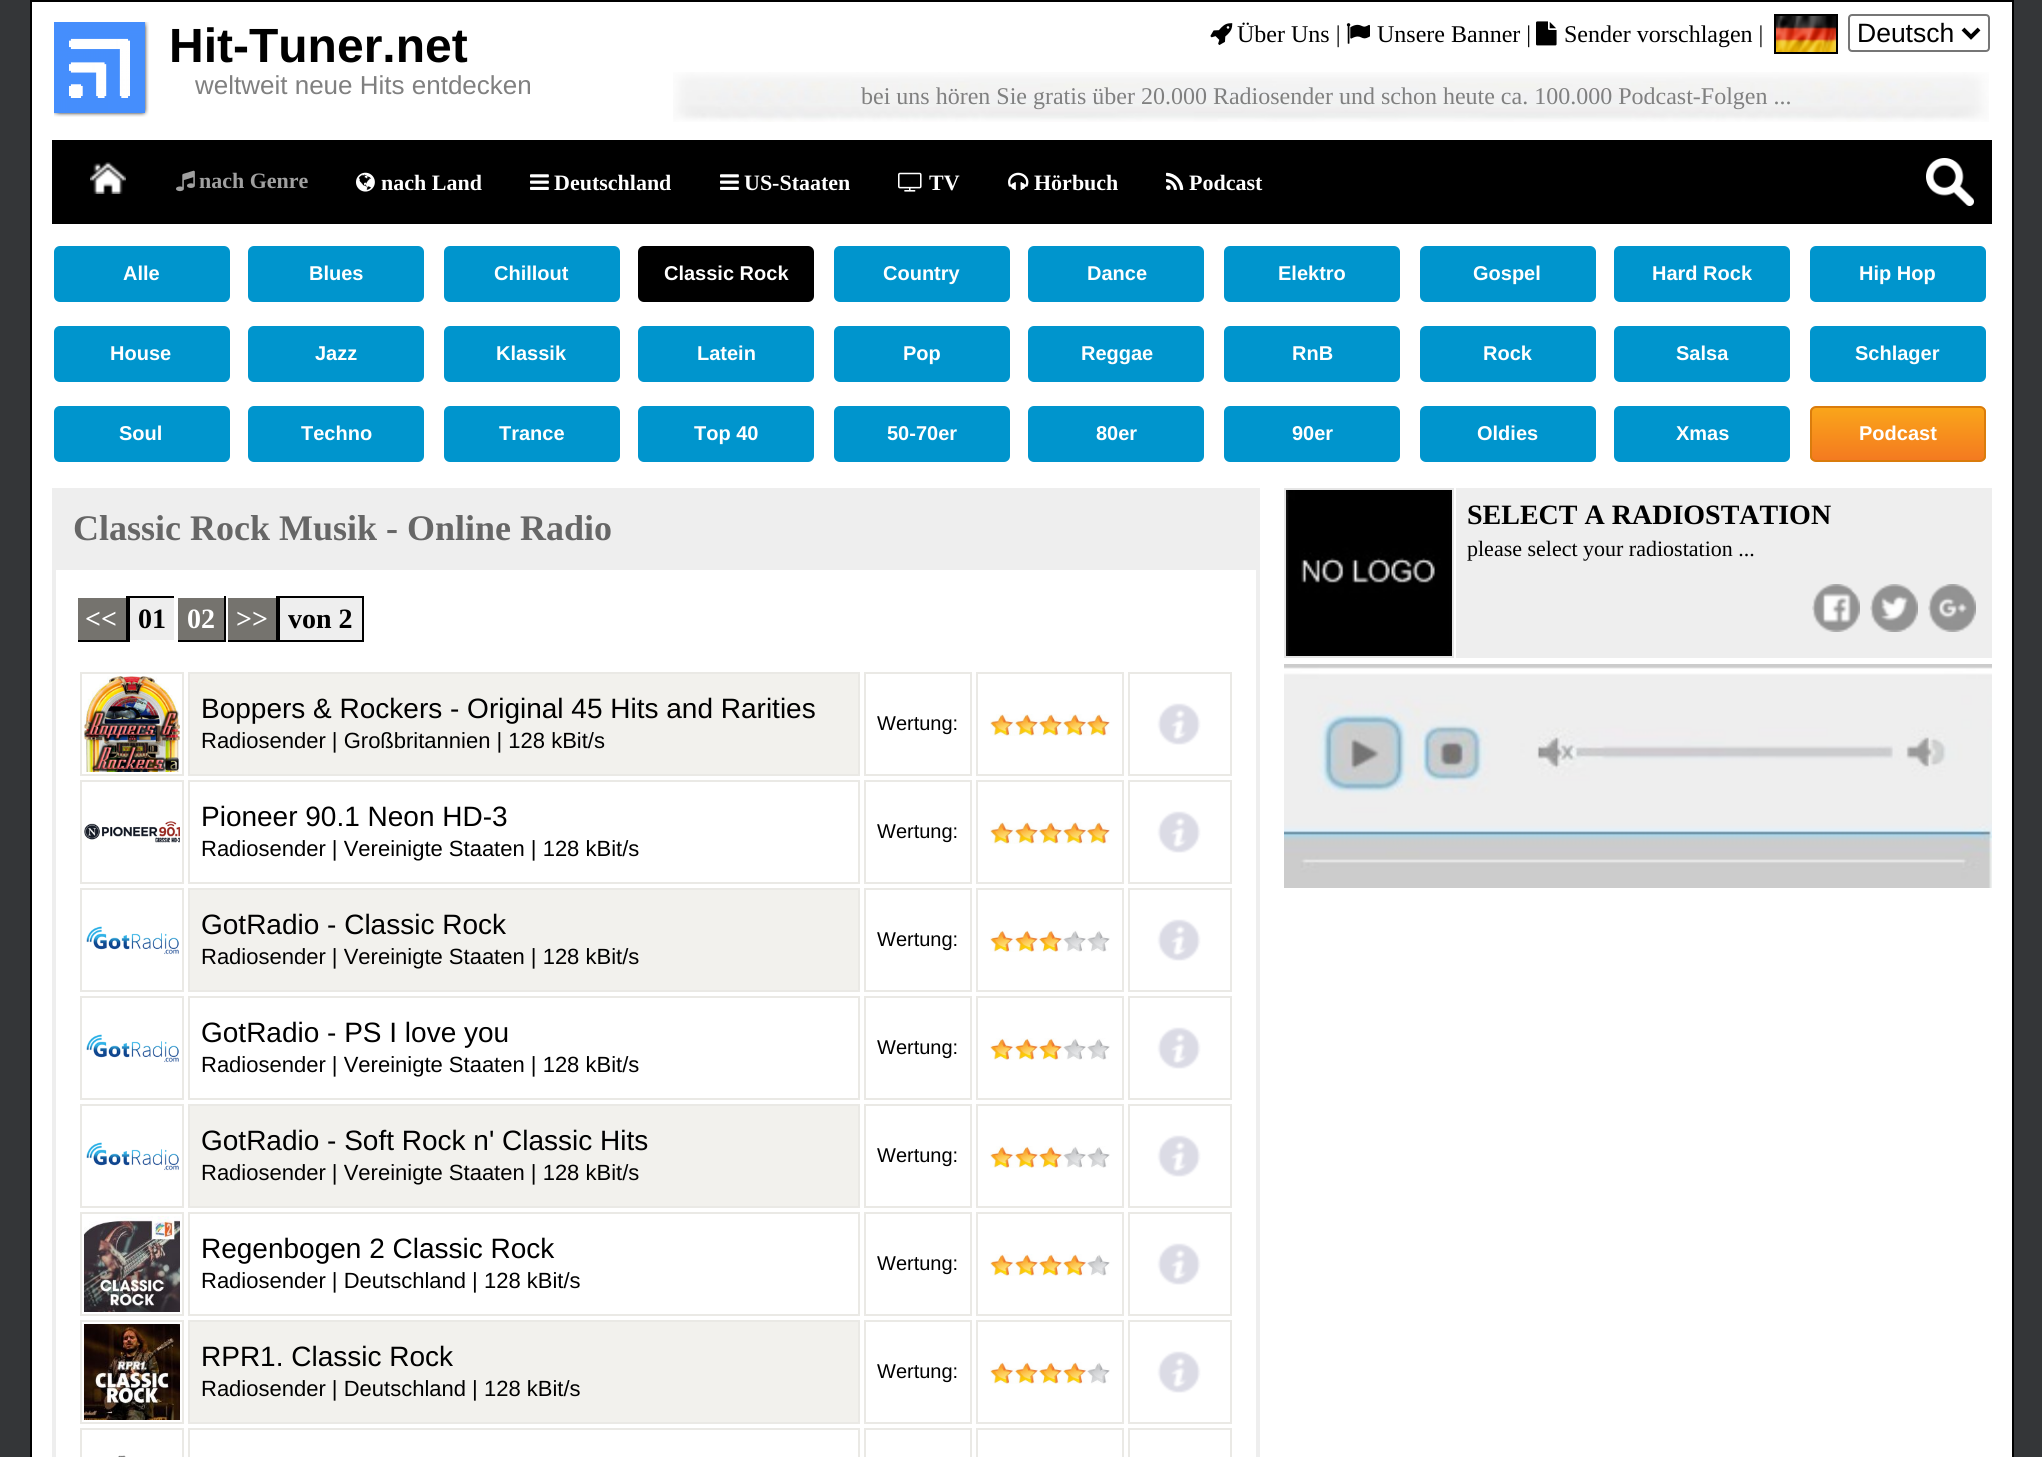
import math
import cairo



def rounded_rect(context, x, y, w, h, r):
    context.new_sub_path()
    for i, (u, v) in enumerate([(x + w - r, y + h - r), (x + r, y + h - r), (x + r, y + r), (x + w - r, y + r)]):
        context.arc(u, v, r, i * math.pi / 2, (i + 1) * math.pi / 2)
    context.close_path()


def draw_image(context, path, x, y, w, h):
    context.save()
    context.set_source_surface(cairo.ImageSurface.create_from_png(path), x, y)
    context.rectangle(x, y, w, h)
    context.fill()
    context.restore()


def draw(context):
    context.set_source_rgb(52 / 255, 54 / 255, 56 / 255)
    context.paint()
    context.set_source_rgb(1, 1, 1)
    context.rectangle(31, 1, 1982, 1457)
    context.fill_preserve()
    context.set_source_rgb(0, 0, 0)
    context.stroke()
    draw_image(context, "images/1.png", 54, 22, 95, 95)
    draw_image(context, "images/2.png", 1210, 23, 23, 22)
    draw_image(context, "images/3.png", 1346, 23, 24, 21)
    draw_image(context, "images/4.png", 1536, 21, 21, 25)
    context.rectangle(1775, 15, 62, 38)
    context.stroke()
    draw_image(context, "images/5.png", 1776, 16, 60, 36)
    rounded_rect(context, 1849, 15, 140, 36, 3)
    context.set_source_rgb(118 / 255, 118 / 255, 118 / 255)
    context.stroke()
    context.new_path()
    context.move_to(1963, 29)
    context.line_to(1971, 37)
    context.line_to(1979, 29)
    context.set_source_rgb(0, 0, 0)
    context.set_line_width(4)
    context.stroke()
    draw_image(context, "images/6.png", 673, 72, 1316, 50)
    context.rectangle(52, 140, 1940, 84)
    context.fill()
    draw_image(context, "images/7.png", 90, 162, 36, 32)
    draw_image(context, "images/8.png", 176, 170, 19, 22)
    draw_image(context, "images/9.png", 356, 172, 19, 20)
    draw_image(context, "images/10.png", 530, 174, 19, 16)
    draw_image(context, "images/10.png", 720, 174, 19, 16)
    draw_image(context, "images/11.png", 898, 172, 24, 20)
    draw_image(context, "images/12.png", 1008, 172, 21, 18)
    draw_image(context, "images/13.png", 1166, 172, 18, 18)
    draw_image(context, "images/14.png", 1926, 158, 48, 48)
    context.set_source_rgb(0, 149 / 255, 205 / 255)
    rounded_rect(context, 55, 247, 174, 54, 5)
    context.fill_preserve()
    context.set_line_width(2)
    context.stroke()
    rounded_rect(context, 249, 247, 174, 54, 5)
    context.fill_preserve()
    context.stroke()
    rounded_rect(context, 445, 247, 174, 54, 5)
    context.fill_preserve()
    context.stroke()
    context.set_source_rgb(0, 0, 0)
    rounded_rect(context, 639, 247, 174, 54, 5)
    context.fill_preserve()
    context.stroke()
    context.set_source_rgb(0, 149 / 255, 205 / 255)
    rounded_rect(context, 835, 247, 174, 54, 5)
    context.fill_preserve()
    context.stroke()
    rounded_rect(context, 1029, 247, 174, 54, 5)
    context.fill_preserve()
    context.stroke()
    rounded_rect(context, 1225, 247, 174, 54, 5)
    context.fill_preserve()
    context.stroke()
    rounded_rect(context, 1421, 247, 174, 54, 5)
    context.fill_preserve()
    context.stroke()
    rounded_rect(context, 1615, 247, 174, 54, 5)
    context.fill_preserve()
    context.stroke()
    rounded_rect(context, 1811, 247, 174, 54, 5)
    context.fill_preserve()
    context.stroke()
    rounded_rect(context, 55, 327, 174, 54, 5)
    context.fill_preserve()
    context.stroke()
    rounded_rect(context, 249, 327, 174, 54, 5)
    context.fill_preserve()
    context.stroke()
    rounded_rect(context, 445, 327, 174, 54, 5)
    context.fill_preserve()
    context.stroke()
    rounded_rect(context, 639, 327, 174, 54, 5)
    context.fill_preserve()
    context.stroke()
    rounded_rect(context, 835, 327, 174, 54, 5)
    context.fill_preserve()
    context.stroke()
    rounded_rect(context, 1029, 327, 174, 54, 5)
    context.fill_preserve()
    context.stroke()
    rounded_rect(context, 1225, 327, 174, 54, 5)
    context.fill_preserve()
    context.stroke()
    rounded_rect(context, 1421, 327, 174, 54, 5)
    context.fill_preserve()
    context.stroke()
    rounded_rect(context, 1615, 327, 174, 54, 5)
    context.fill_preserve()
    context.stroke()
    rounded_rect(context, 1811, 327, 174, 54, 5)
    context.fill_preserve()
    context.stroke()
    rounded_rect(context, 55, 407, 174, 54, 5)
    context.fill_preserve()
    context.stroke()
    rounded_rect(context, 249, 407, 174, 54, 5)
    context.fill_preserve()
    context.stroke()
    rounded_rect(context, 445, 407, 174, 54, 5)
    context.fill_preserve()
    context.stroke()
    rounded_rect(context, 639, 407, 174, 54, 5)
    context.fill_preserve()
    context.stroke()
    rounded_rect(context, 835, 407, 174, 54, 5)
    context.fill_preserve()
    context.stroke()
    rounded_rect(context, 1029, 407, 174, 54, 5)
    context.fill_preserve()
    context.stroke()
    rounded_rect(context, 1225, 407, 174, 54, 5)
    context.fill_preserve()
    context.stroke()
    rounded_rect(context, 1421, 407, 174, 54, 5)
    context.fill_preserve()
    context.stroke()
    rounded_rect(context, 1615, 407, 174, 54, 5)
    context.fill_preserve()
    context.stroke()
    context.save()
    rounded_rect(context, 1810, 406, 176, 56, 6)
    context.clip()
    gradient = cairo.LinearGradient(1812, 408, 1812, 460)
    gradient.add_color_stop_rgba(0, 250 / 255, 165 / 255, 26 / 255, 1)
    gradient.add_color_stop_rgba(1, 244 / 255, 122 / 255, 32 / 255, 1)
    context.set_source(gradient)
    context.rectangle(1810, 408, 176, 52)
    context.fill()
    context.restore()
    rounded_rect(context, 1811, 407, 174, 54, 5)
    context.set_source_rgb(218 / 255, 124 / 255, 12 / 255)
    context.stroke()
    context.set_source_rgb(238 / 255, 238 / 255, 238 / 255)
    context.rectangle(54, 490, 1204, 80)
    context.fill()
    context.rectangle(52, 488, 1208, 2)
    context.fill()
    context.rectangle(1258, 488, 2, 82)
    context.fill()
    context.rectangle(52, 488, 2, 82)
    context.fill()
    context.rectangle(1256, 570, 4, 887)
    context.fill()
    context.rectangle(52, 570, 4, 887)
    context.fill()
    context.set_source_rgb(117 / 255, 115 / 255, 110 / 255)
    context.rectangle(78, 598, 48, 42)
    context.fill()
    context.set_source_rgb(0, 0, 0)
    context.rectangle(126, 596, 2, 46)
    context.fill()
    context.rectangle(76, 640, 52, 2)
    context.fill()
    context.set_source_rgb(1, 1, 1)
    context.rectangle(76, 640, 2, 2)
    context.fill()
    context.set_source_rgb(238 / 255, 238 / 255, 238 / 255)
    context.rectangle(130, 598, 44, 42)
    context.fill()
    context.set_source_rgb(0, 0, 0)
    context.rectangle(128, 596, 48, 2)
    context.fill()
    context.set_source_rgb(1, 1, 1)
    context.rectangle(174, 596, 2, 2)
    context.fill()
    context.set_source_rgb(0, 0, 0)
    context.rectangle(128, 596, 2, 46)
    context.fill()
    context.set_source_rgb(117 / 255, 115 / 255, 110 / 255)
    context.rectangle(178, 598, 46, 42)
    context.fill()
    context.set_source_rgb(0, 0, 0)
    context.rectangle(224, 596, 2, 46)
    context.fill()
    context.rectangle(176, 640, 50, 2)
    context.fill()
    context.set_source_rgb(1, 1, 1)
    context.rectangle(176, 640, 2, 2)
    context.fill()
    context.set_source_rgb(117 / 255, 115 / 255, 110 / 255)
    context.rectangle(228, 598, 48, 42)
    context.fill()
    context.set_source_rgb(0, 0, 0)
    context.rectangle(276, 596, 2, 46)
    context.fill()
    context.rectangle(226, 640, 52, 2)
    context.fill()
    context.set_source_rgb(1, 1, 1)
    context.rectangle(226, 640, 2, 2)
    context.fill()
    context.set_source_rgb(238 / 255, 238 / 255, 238 / 255)
    context.rectangle(279, 597, 84, 44)
    context.fill_preserve()
    context.set_source_rgb(0, 0, 0)
    context.stroke()
    context.rectangle(81, 673, 102, 102)
    context.set_source_rgb(234 / 255, 233 / 255, 229 / 255)
    context.stroke()
    draw_image(context, "images/15.png", 84, 676, 96, 96)
    context.set_source_rgb(242 / 255, 241 / 255, 237 / 255)
    context.rectangle(189, 673, 670, 102)
    context.fill_preserve()
    context.set_source_rgb(234 / 255, 233 / 255, 229 / 255)
    context.stroke()
    context.rectangle(865, 673, 106, 102)
    context.stroke()
    context.rectangle(977, 673, 146, 102)
    context.stroke()
    draw_image(context, "images/16.png", 990, 714, 120, 22)
    context.rectangle(1129, 673, 102, 102)
    context.stroke()
    draw_image(context, "images/17.png", 1157, 703, 44, 42)
    context.rectangle(81, 781, 102, 102)
    context.stroke()
    draw_image(context, "images/18.png", 84, 821, 96, 22)
    context.rectangle(189, 781, 670, 102)
    context.stroke()
    context.rectangle(865, 781, 106, 102)
    context.stroke()
    context.rectangle(977, 781, 146, 102)
    context.stroke()
    draw_image(context, "images/16.png", 990, 822, 120, 22)
    context.rectangle(1129, 781, 102, 102)
    context.stroke()
    draw_image(context, "images/17.png", 1157, 811, 44, 42)
    context.rectangle(81, 889, 102, 102)
    context.stroke()
    draw_image(context, "images/19.png", 86, 926, 93, 29)
    context.set_source_rgb(242 / 255, 241 / 255, 237 / 255)
    context.rectangle(189, 889, 670, 102)
    context.fill_preserve()
    context.set_source_rgb(234 / 255, 233 / 255, 229 / 255)
    context.stroke()
    context.rectangle(865, 889, 106, 102)
    context.stroke()
    context.rectangle(977, 889, 146, 102)
    context.stroke()
    draw_image(context, "images/20.png", 990, 930, 120, 22)
    context.rectangle(1129, 889, 102, 102)
    context.stroke()
    draw_image(context, "images/17.png", 1157, 919, 44, 42)
    context.rectangle(81, 997, 102, 102)
    context.stroke()
    draw_image(context, "images/19.png", 86, 1034, 93, 29)
    context.rectangle(189, 997, 670, 102)
    context.stroke()
    context.rectangle(865, 997, 106, 102)
    context.stroke()
    context.rectangle(977, 997, 146, 102)
    context.stroke()
    draw_image(context, "images/20.png", 990, 1038, 120, 22)
    context.rectangle(1129, 997, 102, 102)
    context.stroke()
    draw_image(context, "images/17.png", 1157, 1027, 44, 42)
    context.rectangle(81, 1105, 102, 102)
    context.stroke()
    draw_image(context, "images/19.png", 86, 1142, 93, 29)
    context.set_source_rgb(242 / 255, 241 / 255, 237 / 255)
    context.rectangle(189, 1105, 670, 102)
    context.fill_preserve()
    context.set_source_rgb(234 / 255, 233 / 255, 229 / 255)
    context.stroke()
    context.rectangle(865, 1105, 106, 102)
    context.stroke()
    context.rectangle(977, 1105, 146, 102)
    context.stroke()
    draw_image(context, "images/20.png", 990, 1146, 120, 22)
    context.rectangle(1129, 1105, 102, 102)
    context.stroke()
    draw_image(context, "images/17.png", 1157, 1135, 44, 42)
    context.rectangle(81, 1213, 102, 102)
    context.stroke()
    draw_image(context, "images/21.png", 84, 1216, 96, 96)
    context.rectangle(189, 1213, 670, 102)
    context.stroke()
    context.rectangle(865, 1213, 106, 102)
    context.stroke()
    context.rectangle(977, 1213, 146, 102)
    context.stroke()
    draw_image(context, "images/22.png", 990, 1254, 120, 22)
    context.rectangle(1129, 1213, 102, 102)
    context.stroke()
    draw_image(context, "images/17.png", 1157, 1243, 44, 42)
    context.rectangle(81, 1321, 102, 102)
    context.stroke()
    draw_image(context, "images/23.png", 84, 1324, 96, 96)
    context.set_source_rgb(242 / 255, 241 / 255, 237 / 255)
    context.rectangle(189, 1321, 670, 102)
    context.fill_preserve()
    context.set_source_rgb(234 / 255, 233 / 255, 229 / 255)
    context.stroke()
    context.rectangle(865, 1321, 106, 102)
    context.stroke()
    context.rectangle(977, 1321, 146, 102)
    context.stroke()
    draw_image(context, "images/22.png", 990, 1362, 120, 22)
    context.rectangle(1129, 1321, 102, 102)
    context.stroke()
    draw_image(context, "images/17.png", 1157, 1351, 44, 42)
    context.rectangle(81, 1429, 102, 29)
    context.stroke()
    draw_image(context, "images/24.png", 118, 1455, 8, 2)
    context.rectangle(189, 1429, 670, 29)
    context.stroke()
    context.rectangle(865, 1429, 106, 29)
    context.stroke()
    context.rectangle(977, 1429, 146, 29)
    context.stroke()
    context.rectangle(1129, 1429, 102, 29)
    context.stroke()
    context.rectangle(1285, 489, 168, 168)
    context.set_source_rgb(229 / 255, 229 / 255, 229 / 255)
    context.stroke()
    draw_image(context, "images/25.png", 1286, 490, 166, 166)
    context.set_source_rgb(238 / 255, 238 / 255, 238 / 255)
    context.rectangle(1456, 488, 536, 170)
    context.fill()
    draw_image(context, "images/26.png", 1812, 584, 48, 48)
    draw_image(context, "images/27.png", 1870, 584, 48, 48)
    draw_image(context, "images/28.png", 1928, 584, 48, 48)
    draw_image(context, "images/29.png", 1284, 664, 708, 224)
    context.select_font_face("Liberation Sans", cairo.FontSlant.NORMAL, cairo.FontWeight.BOLD)
    context.set_font_size(48)
    context.set_source_rgb(0, 0, 0)
    context.move_to(169, 62)
    context.show_text("Hit-Tuner.net")
    context.select_font_face("Liberation Sans")
    context.set_font_size(26)
    context.set_source_rgb(128 / 255, 128 / 255, 128 / 255)
    context.move_to(195, 94)
    context.show_text("weltweit neue Hits entdecken")
    context.select_font_face("Liberation Serif")
    context.set_font_size(24)
    context.set_source_rgb(0, 0, 0)
    context.move_to(1237, 42)
    context.show_text("Über Uns |")
    context.move_to(1377, 42)
    context.show_text("Unsere Banner |")
    context.move_to(1564, 42)
    context.show_text("Sender vorschlagen |")
    context.select_font_face("Liberation Sans")
    context.set_font_size(26.5)
    context.move_to(1857, 42)
    context.show_text("Deutsch")
    context.select_font_face("Liberation Serif")
    context.set_font_size(24)
    context.set_source_rgb(128 / 255, 128 / 255, 128 / 255)
    context.move_to(861, 104)
    context.show_text("bei uns hören Sie gratis über 20.000 Radiosender und schon heute ca. 100.000 Podcast-Folgen ...")
    context.select_font_face("Liberation Serif", cairo.FontSlant.NORMAL, cairo.FontWeight.BOLD)
    context.set_font_size(22)
    context.set_source_rgb(160 / 255, 160 / 255, 160 / 255)
    context.move_to(199, 188)
    context.show_text("nach Genre")
    context.set_source_rgb(1, 1, 1)
    context.move_to(381, 190)
    context.show_text("nach Land")
    context.move_to(554, 190)
    context.show_text("Deutschland")
    context.move_to(744, 190)
    context.show_text("US-Staaten")
    context.move_to(929, 190)
    context.show_text("TV")
    context.move_to(1034, 190)
    context.show_text("Hörbuch")
    context.move_to(1189, 190)
    context.show_text("Podcast")
    context.select_font_face("Liberation Sans", cairo.FontSlant.NORMAL, cairo.FontWeight.BOLD)
    context.set_font_size(20)
    context.move_to(123, 280)
    context.show_text("Alle")
    context.move_to(309, 280)
    context.show_text("Blues")
    context.move_to(494, 280)
    context.show_text("Chillout")
    context.move_to(664, 280)
    context.show_text("Classic Rock")
    context.move_to(883, 280)
    context.show_text("Country")
    context.move_to(1087, 280)
    context.show_text("Dance")
    context.move_to(1278, 280)
    context.show_text("Elektro")
    context.move_to(1473, 280)
    context.show_text("Gospel")
    context.move_to(1652, 280)
    context.show_text("Hard Rock")
    context.move_to(1859, 280)
    context.show_text("Hip Hop")
    context.move_to(110, 360)
    context.show_text("House")
    context.move_to(315, 360)
    context.show_text("Jazz")
    context.move_to(496, 360)
    context.show_text("Klassik")
    context.move_to(697, 360)
    context.show_text("Latein")
    context.move_to(903, 360)
    context.show_text("Pop")
    context.move_to(1081, 360)
    context.show_text("Reggae")
    context.move_to(1292, 360)
    context.show_text("RnB")
    context.move_to(1483, 360)
    context.show_text("Rock")
    context.move_to(1676, 360)
    context.show_text("Salsa")
    context.move_to(1855, 360)
    context.show_text("Schlager")
    context.move_to(119, 440)
    context.show_text("Soul")
    context.move_to(301, 440)
    context.show_text("Techno")
    context.move_to(499, 440)
    context.show_text("Trance")
    context.move_to(694, 440)
    context.show_text("Top 40")
    context.move_to(887, 440)
    context.show_text("50-70er")
    context.move_to(1096, 440)
    context.show_text("80er")
    context.move_to(1292, 440)
    context.show_text("90er")
    context.move_to(1477, 440)
    context.show_text("Oldies")
    context.move_to(1676, 440)
    context.show_text("Xmas")
    context.move_to(1859, 440)
    context.show_text("Podcast")
    context.select_font_face("Liberation Serif", cairo.FontSlant.NORMAL, cairo.FontWeight.BOLD)
    context.set_font_size(36)
    context.set_source_rgb(102 / 255, 102 / 255, 102 / 255)
    context.move_to(73, 540)
    context.show_text("Classic Rock Musik - Online Radio")
    context.set_font_size(28)
    context.set_source_rgb(1, 1, 1)
    context.move_to(85, 628)
    context.show_text("<<")
    context.set_source_rgb(0, 0, 0)
    context.move_to(138, 628)
    context.show_text("01")
    context.set_source_rgb(1, 1, 1)
    context.move_to(187, 628)
    context.show_text("02")
    context.move_to(236, 628)
    context.show_text(">>")
    context.set_source_rgb(0, 0, 0)
    context.move_to(288, 628)
    context.show_text("von 2")
    context.select_font_face("Liberation Sans")
    context.move_to(201, 718)
    context.show_text("Boppers & Rockers - Original 45 Hits and Rarities")
    context.set_font_size(22)
    context.move_to(201, 748)
    context.show_text("Radiosender | Großbritannien | 128 kBit/s")
    context.set_font_size(20)
    context.move_to(877, 730)
    context.show_text("Wertung:")
    context.set_font_size(28)
    context.move_to(201, 826)
    context.show_text("Pioneer 90.1 Neon HD-3")
    context.set_font_size(22)
    context.move_to(201, 856)
    context.show_text("Radiosender | Vereinigte Staaten | 128 kBit/s")
    context.set_font_size(20)
    context.move_to(877, 838)
    context.show_text("Wertung:")
    context.set_font_size(28)
    context.move_to(201, 934)
    context.show_text("GotRadio - Classic Rock")
    context.set_font_size(22)
    context.move_to(201, 964)
    context.show_text("Radiosender | Vereinigte Staaten | 128 kBit/s")
    context.set_font_size(20)
    context.move_to(877, 946)
    context.show_text("Wertung:")
    context.set_font_size(28)
    context.move_to(201, 1042)
    context.show_text("GotRadio - PS I love you")
    context.set_font_size(22)
    context.move_to(201, 1072)
    context.show_text("Radiosender | Vereinigte Staaten | 128 kBit/s")
    context.set_font_size(20)
    context.move_to(877, 1054)
    context.show_text("Wertung:")
    context.set_font_size(28)
    context.move_to(201, 1150)
    context.show_text("GotRadio - Soft Rock n' Classic Hits")
    context.set_font_size(22)
    context.move_to(201, 1180)
    context.show_text("Radiosender | Vereinigte Staaten | 128 kBit/s")
    context.set_font_size(20)
    context.move_to(877, 1162)
    context.show_text("Wertung:")
    context.set_font_size(28)
    context.move_to(201, 1258)
    context.show_text("Regenbogen 2 Classic Rock")
    context.set_font_size(22)
    context.move_to(201, 1288)
    context.show_text("Radiosender | Deutschland | 128 kBit/s")
    context.set_font_size(20)
    context.move_to(877, 1270)
    context.show_text("Wertung:")
    context.set_font_size(28)
    context.move_to(201, 1366)
    context.show_text("RPR1. Classic Rock")
    context.set_font_size(22)
    context.move_to(201, 1396)
    context.show_text("Radiosender | Deutschland | 128 kBit/s")
    context.set_font_size(20)
    context.move_to(877, 1378)
    context.show_text("Wertung:")
    context.select_font_face("Liberation Serif", cairo.FontSlant.NORMAL, cairo.FontWeight.BOLD)
    context.set_font_size(28)
    context.move_to(1467, 524)
    context.show_text("SELECT A RADIOSTATION")
    context.select_font_face("Liberation Serif")
    context.set_font_size(22)
    context.move_to(1467, 556)
    context.show_text("please select your radiostation ...")


surface = cairo.ImageSurface(cairo.Format.RGB24, 2042, 1457)
context = cairo.Context(surface)
options = cairo.FontOptions()
options.set_hint_metrics(cairo.HintMetrics.OFF)
options.set_hint_style(cairo.HintStyle.NONE)
context.set_font_options(options)
context.set_miter_limit(4)
draw(context)
surface.write_to_png("out.png")
